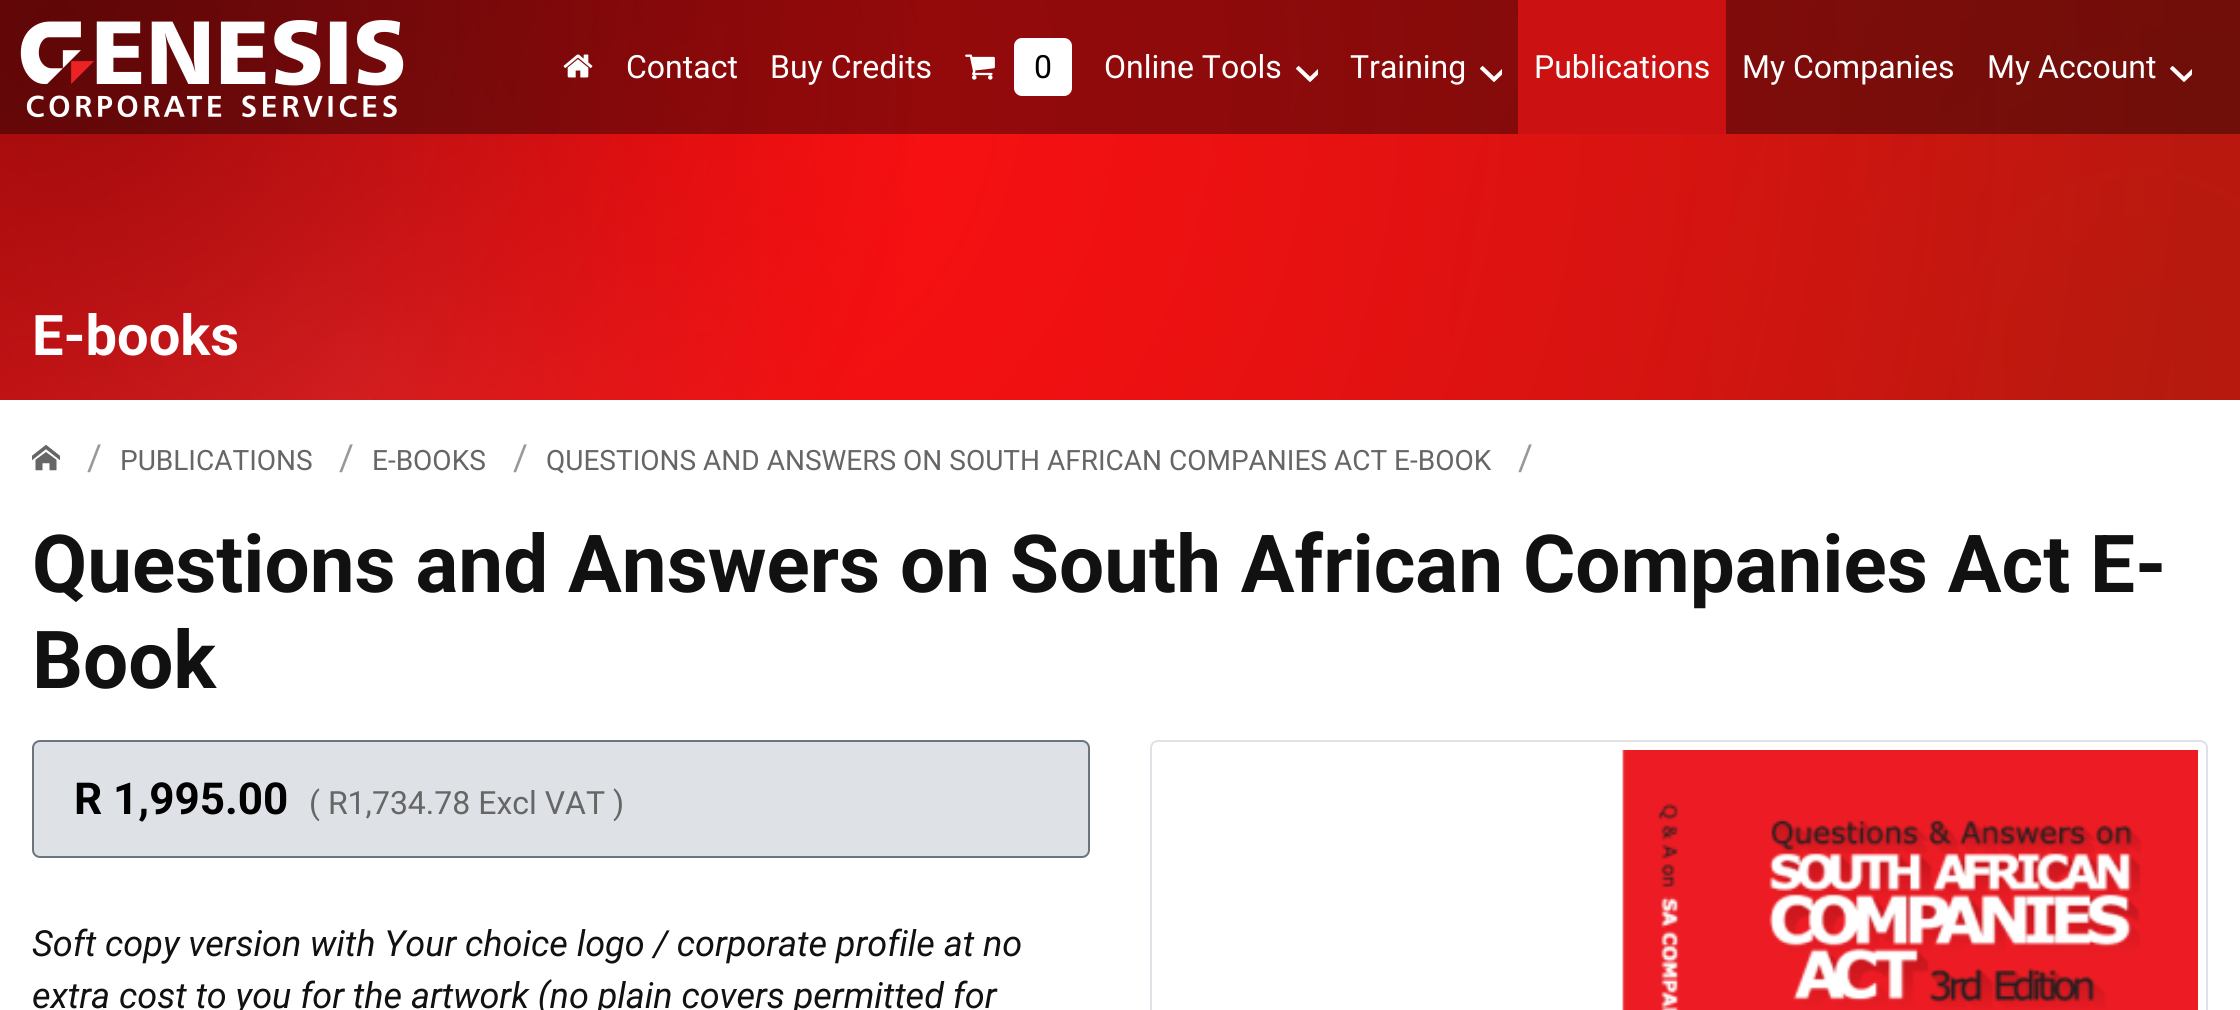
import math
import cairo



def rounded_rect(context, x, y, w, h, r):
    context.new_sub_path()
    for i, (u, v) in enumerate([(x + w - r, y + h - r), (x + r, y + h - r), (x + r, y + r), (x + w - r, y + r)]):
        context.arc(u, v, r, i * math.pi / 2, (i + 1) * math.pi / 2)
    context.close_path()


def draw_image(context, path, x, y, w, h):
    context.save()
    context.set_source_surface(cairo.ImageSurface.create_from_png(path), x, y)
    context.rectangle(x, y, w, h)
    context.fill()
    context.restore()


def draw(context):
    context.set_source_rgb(1, 1, 1)
    context.paint()
    gradient = cairo.RadialGradient(2140, 353, 0, 2140, 353, 2169)
    gradient.add_color_stop_rgba(0, 181 / 255, 26 / 255, 14 / 255, 1)
    gradient.add_color_stop_rgba(0.51, 203 / 255, 17 / 255, 18 / 255, 1)
    context.set_source(gradient)
    context.rectangle(0, 0, 2240, 400)
    context.fill()
    gradient = cairo.RadialGradient(352, 354, 0, 352, 354, 1921)
    gradient.add_color_stop_rgba(0, 252 / 255, 121 / 255, 123 / 255, 1)
    gradient.add_color_stop_rgba(0.25, 252 / 255, 121 / 255, 123 / 255, 0)
    context.set_source(gradient)
    context.rectangle(0, 0, 821, 400)
    context.fill()
    gradient = cairo.RadialGradient(685, 93, 0, 685, 93, 1585)
    gradient.add_color_stop_rgba(0, 1, 16 / 255, 18 / 255, 1)
    gradient.add_color_stop_rgba(0.97, 1, 16 / 255, 18 / 255, 0)
    context.set_source(gradient)
    context.rectangle(0, 0, 2174, 400)
    context.fill()
    gradient = cairo.RadialGradient(58, 25, 0, 58, 25, 2214)
    gradient.add_color_stop_rgba(0, 159 / 255, 10 / 255, 12 / 255, 1)
    gradient.add_color_stop_rgba(0.4, 159 / 255, 10 / 255, 12 / 255, 0)
    context.set_source(gradient)
    context.rectangle(0, 0, 918, 400)
    context.fill()
    context.set_source_rgba(0, 0, 0, 0.4)
    context.rectangle(0, 0, 2240, 134)
    context.fill()
    draw_image(context, "images/1.png", 20, 20, 384, 98)
    draw_image(context, "images/2.png", 563, 54, 30, 24)
    draw_image(context, "images/3.png", 965, 54, 30, 26)
    context.set_source_rgb(1, 1, 1)
    rounded_rect(context, 1014, 38, 58, 58, 8)
    context.fill()
    draw_image(context, "images/4.png", 1296, 66, 22, 16)
    draw_image(context, "images/5.png", 1480, 66, 22, 16)
    context.set_source_rgb(203 / 255, 17 / 255, 18 / 255)
    context.rectangle(1518, 0, 208, 134)
    context.fill()
    draw_image(context, "images/6.png", 2170, 66, 22, 16)
    draw_image(context, "images/7.png", 32, 444, 28, 27)
    context.set_source_rgb(222 / 255, 226 / 255, 230 / 255)
    rounded_rect(context, 33, 741, 1056, 116, 7)
    context.fill_preserve()
    context.set_source_rgb(108 / 255, 117 / 255, 125 / 255)
    context.stroke()
    rounded_rect(context, 1151, 741, 1056, 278, 7)
    context.set_source_rgb(222 / 255, 226 / 255, 230 / 255)
    context.stroke()
    draw_image(context, "images/8.png", 1622, 750, 576, 260)
    context.select_font_face("Roboto")
    context.set_font_size(32)
    context.set_source_rgb(1, 1, 1)
    context.move_to(626, 78)
    context.show_text("Contact")
    context.move_to(770, 78)
    context.show_text("Buy Credits")
    context.set_source_rgb(0, 0, 0)
    context.move_to(1034, 78)
    context.show_text("0")
    context.set_source_rgb(1, 1, 1)
    context.move_to(1104, 78)
    context.show_text("Online Tools")
    context.move_to(1350, 78)
    context.show_text("Training")
    context.move_to(1534, 78)
    context.show_text("Publications")
    context.move_to(1742, 78)
    context.show_text("My Companies")
    context.move_to(1987, 78)
    context.show_text("My Account")
    context.select_font_face("Roboto", cairo.FontSlant.NORMAL, cairo.FontWeight.BOLD)
    context.set_font_size(56)
    context.move_to(32, 355)
    context.show_text("E-books")
    context.select_font_face("Roboto")
    context.set_font_size(36)
    context.set_source_rgb(153 / 255, 153 / 255, 153 / 255)
    context.move_to(87, 470)
    context.show_text("/")
    context.set_font_size(28)
    context.set_source_rgb(102 / 255, 102 / 255, 102 / 255)
    context.move_to(120, 470)
    context.show_text("PUBLICATIONS")
    context.set_font_size(36)
    context.set_source_rgb(153 / 255, 153 / 255, 153 / 255)
    context.move_to(339, 470)
    context.show_text("/")
    context.set_font_size(28)
    context.set_source_rgb(102 / 255, 102 / 255, 102 / 255)
    context.move_to(372, 470)
    context.show_text("E-BOOKS")
    context.set_font_size(36)
    context.set_source_rgb(153 / 255, 153 / 255, 153 / 255)
    context.move_to(513, 470)
    context.show_text("/")
    context.set_font_size(28)
    context.set_source_rgb(102 / 255, 102 / 255, 102 / 255)
    context.move_to(546, 470)
    context.show_text("QUESTIONS AND ANSWERS ON SOUTH AFRICAN COMPANIES ACT E-BOOK")
    context.set_font_size(36)
    context.set_source_rgb(153 / 255, 153 / 255, 153 / 255)
    context.move_to(1518, 470)
    context.show_text("/")
    context.select_font_face("Roboto", cairo.FontSlant.NORMAL, cairo.FontWeight.BOLD)
    context.set_font_size(80)
    context.set_source_rgb(17 / 255, 17 / 255, 17 / 255)
    context.move_to(32, 592)
    context.show_text("Questions and Answers on South African Companies Act E-")
    context.move_to(32, 688)
    context.show_text("Book")
    context.set_font_size(44)
    context.set_source_rgb(0, 0, 0)
    context.move_to(74, 814)
    context.show_text("R 1,995.00")
    context.select_font_face("Roboto")
    context.set_font_size(32)
    context.set_source_rgb(102 / 255, 102 / 255, 102 / 255)
    context.move_to(309, 814)
    context.show_text("( R1,734.78 Excl VAT )")
    context.select_font_face("Roboto", cairo.FontSlant.ITALIC)
    context.set_font_size(36)
    context.set_source_rgb(17 / 255, 17 / 255, 17 / 255)
    context.move_to(32, 956)
    context.show_text("Soft copy version with Your choice logo / corporate profile at no")
    context.move_to(32, 1008)
    context.show_text("extra cost to you for the artwork (no plain covers permitted for")


surface = cairo.ImageSurface(cairo.Format.RGB24, 2240, 1010)
context = cairo.Context(surface)
options = cairo.FontOptions()
options.set_hint_metrics(cairo.HintMetrics.OFF)
options.set_hint_style(cairo.HintStyle.NONE)
context.set_font_options(options)
context.set_miter_limit(4)
draw(context)
surface.write_to_png("out.png")
